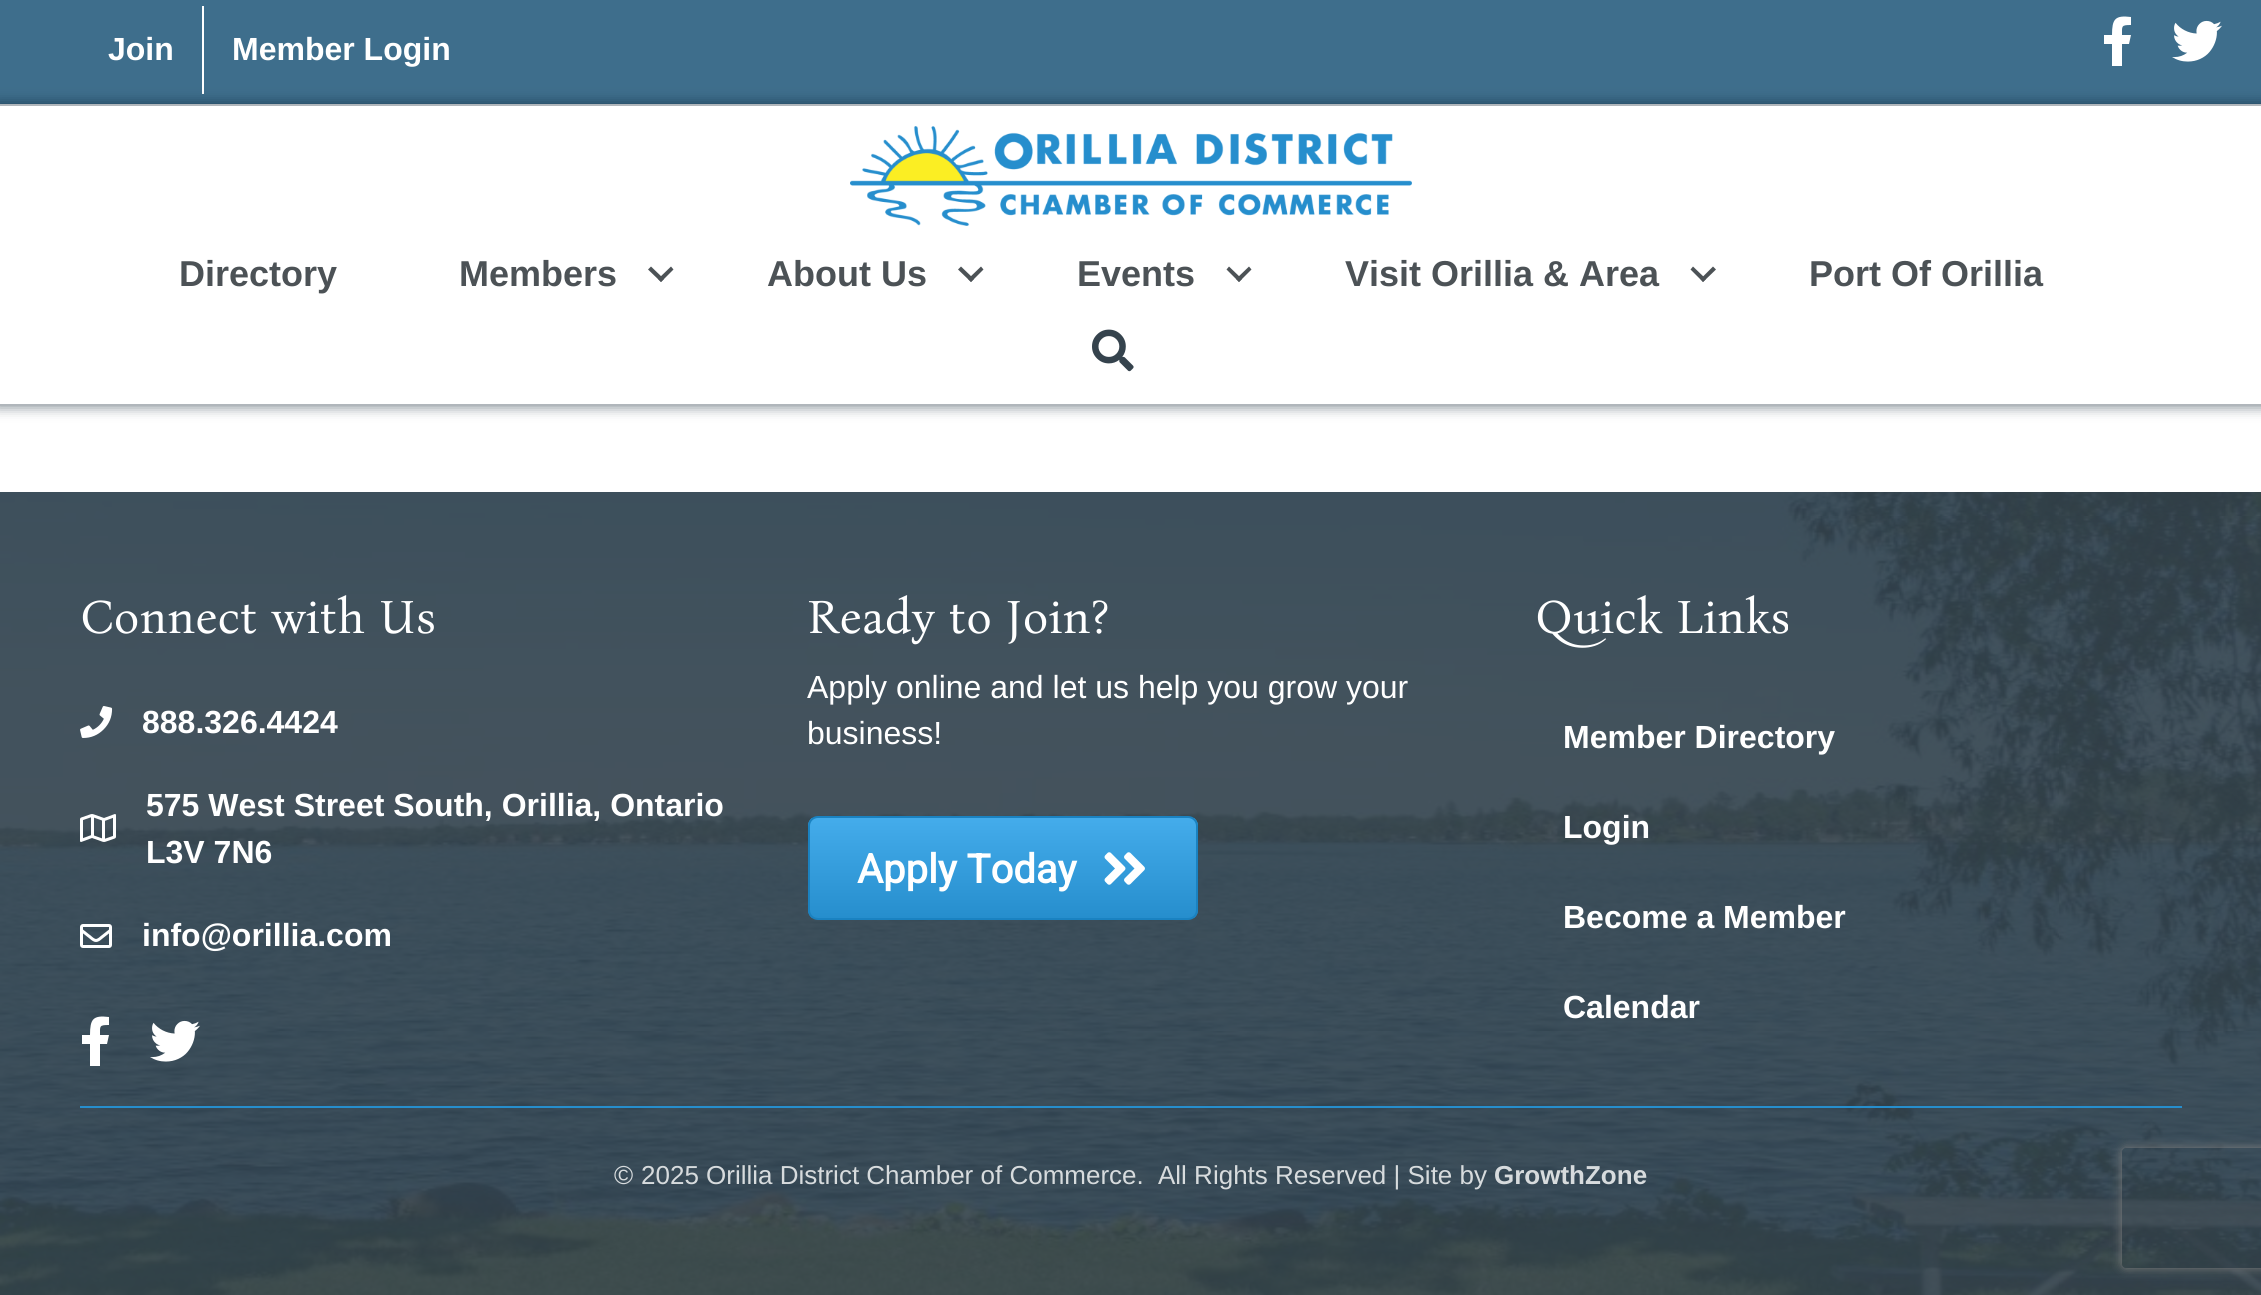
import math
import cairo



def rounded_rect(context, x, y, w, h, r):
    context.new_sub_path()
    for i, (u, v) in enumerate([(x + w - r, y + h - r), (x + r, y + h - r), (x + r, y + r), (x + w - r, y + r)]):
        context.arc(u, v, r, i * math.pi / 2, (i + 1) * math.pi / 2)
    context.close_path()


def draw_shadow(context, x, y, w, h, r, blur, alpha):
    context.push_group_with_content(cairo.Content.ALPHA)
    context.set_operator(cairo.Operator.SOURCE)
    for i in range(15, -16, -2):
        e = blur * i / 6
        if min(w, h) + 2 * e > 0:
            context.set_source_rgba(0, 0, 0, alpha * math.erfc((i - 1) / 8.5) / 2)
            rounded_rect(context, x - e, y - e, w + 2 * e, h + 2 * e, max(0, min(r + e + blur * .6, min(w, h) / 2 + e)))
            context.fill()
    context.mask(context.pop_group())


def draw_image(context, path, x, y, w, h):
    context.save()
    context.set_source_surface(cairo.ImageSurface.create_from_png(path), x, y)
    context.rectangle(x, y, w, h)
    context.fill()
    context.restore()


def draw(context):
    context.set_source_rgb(1, 1, 1)
    context.paint()
    context.set_source_rgb(62 / 255, 110 / 255, 140 / 255)
    context.rectangle(0, 0, 2261, 104)
    context.fill()
    context.set_source_rgb(1, 1, 1)
    context.rectangle(202, 6, 2, 88)
    context.fill()
    context.new_path()
    context.move_to(2129, 44)
    context.line_to(2122, 44)
    context.line_to(2122, 66)
    context.line_to(2112, 66)
    context.line_to(2112, 44)
    context.line_to(2104, 44)
    context.line_to(2104, 35)
    context.line_to(2112, 35)
    context.curve_to(2112, 19, 2115, 15, 2131, 17)
    context.line_to(2131, 25)
    context.curve_to(2121, 25, 2122, 26, 2122, 35)
    context.line_to(2131, 35)
    context.close_path()
    context.fill()
    draw_image(context, "images/1.png", 2172, 20, 50, 42)
    context.set_source_rgb(0, 21 / 255, 36 / 255)
    draw_shadow(context, -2, 102, 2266, 306, 0, 6, 0.43)
    context.set_source_rgb(1, 1, 1)
    context.rectangle(0, 106, 2261, 298)
    context.fill()
    context.set_source_rgb(176 / 255, 182 / 255, 187 / 255)
    context.rectangle(0, 104, 2261, 2)
    context.fill()
    context.rectangle(0, 404, 2261, 2)
    context.fill()
    draw_image(context, "images/2.png", 850, 126, 562, 100)
    context.set_source_rgb(76 / 255, 82 / 255, 86 / 255)
    context.new_path()
    context.move_to(671, 266.5)
    context.line_to(673.5, 269.5)
    context.line_to(661, 282)
    context.line_to(658, 279)
    context.close_path()
    context.fill()
    context.new_path()
    context.move_to(651, 266.5)
    context.line_to(664, 279)
    context.line_to(661, 282)
    context.line_to(648, 269.5)
    context.close_path()
    context.fill()
    context.new_path()
    context.move_to(981, 266.5)
    context.line_to(983.5, 269.5)
    context.line_to(971, 282)
    context.line_to(968, 279)
    context.close_path()
    context.fill()
    context.new_path()
    context.move_to(961, 266.5)
    context.line_to(974, 279)
    context.line_to(971, 282)
    context.line_to(958, 269.5)
    context.close_path()
    context.fill()
    context.new_path()
    context.move_to(1249, 266.5)
    context.line_to(1251.5, 269.5)
    context.line_to(1239, 282)
    context.line_to(1236, 279)
    context.close_path()
    context.fill()
    context.new_path()
    context.move_to(1229, 266.5)
    context.line_to(1242, 279)
    context.line_to(1239, 282)
    context.line_to(1226.5, 269.5)
    context.close_path()
    context.fill()
    context.new_path()
    context.move_to(1713, 266.5)
    context.line_to(1716, 269.5)
    context.line_to(1703, 282)
    context.line_to(1700.5, 279)
    context.close_path()
    context.fill()
    context.new_path()
    context.move_to(1693, 266.5)
    context.line_to(1706, 279)
    context.line_to(1703, 282)
    context.line_to(1690.5, 269.5)
    context.close_path()
    context.fill()
    draw_image(context, "images/3.png", 1092, 329, 42, 43)
    draw_image(context, "images/4.png", 0, 492, 2261, 803)
    draw_image(context, "images/5.png", 80, 706, 33, 32)
    draw_image(context, "images/6.png", 80, 814, 36, 28)
    draw_image(context, "images/7.png", 80, 924, 32, 24)
    context.set_source_rgb(1, 1, 1)
    context.new_path()
    context.move_to(107, 1044)
    context.line_to(100, 1044)
    context.line_to(100, 1066)
    context.line_to(90, 1066)
    context.line_to(90, 1044)
    context.line_to(82, 1044)
    context.line_to(82, 1035)
    context.line_to(90, 1035)
    context.curve_to(90, 1019, 93, 1015, 109, 1017)
    context.line_to(109, 1025)
    context.curve_to(99, 1025, 100, 1026, 100, 1035)
    context.line_to(109, 1035)
    context.close_path()
    context.fill()
    draw_image(context, "images/8.png", 150, 1020, 50, 42)
    context.save()
    rounded_rect(context, 808, 816, 390, 104, 10)
    context.clip()
    gradient = cairo.LinearGradient(1003, 818, 1003, 918)
    gradient.add_color_stop_rgba(0, 68 / 255, 172 / 255, 235 / 255, 1)
    gradient.add_color_stop_rgba(1, 38 / 255, 142 / 255, 205 / 255, 1)
    context.set_source(gradient)
    context.rectangle(808, 818, 390, 100)
    context.fill()
    context.restore()
    rounded_rect(context, 809, 817, 388, 102, 9)
    context.set_source_rgb(26 / 255, 130 / 255, 193 / 255)
    context.stroke()
    draw_image(context, "images/9.png", 1104, 852, 41, 33)
    context.set_source_rgb(38 / 255, 142 / 255, 205 / 255)
    context.rectangle(80, 1106, 2102, 2)
    context.fill()
    context.save()
    context.set_fill_rule(cairo.FillRule.EVEN_ODD)
    context.new_path()
    context.move_to(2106, 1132)
    context.line_to(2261, 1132)
    context.line_to(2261, 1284)
    context.line_to(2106, 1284)
    context.close_path()
    context.move_to(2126, 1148)
    context.line_to(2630, 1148)
    context.curve_to(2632, 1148, 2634, 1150, 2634, 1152)
    context.line_to(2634, 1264)
    context.curve_to(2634, 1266, 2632, 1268, 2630, 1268)
    context.line_to(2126, 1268)
    context.curve_to(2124, 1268, 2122, 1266, 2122, 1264)
    context.line_to(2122, 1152)
    context.curve_to(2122, 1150, 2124, 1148, 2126, 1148)
    context.close_path()
    context.clip()
    context.set_source_rgb(128 / 255, 128 / 255, 128 / 255)
    draw_shadow(context, 2122, 1148, 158, 120, 4, 5, 1)
    context.restore()
    context.select_font_face("Liberation Sans", cairo.FontSlant.NORMAL, cairo.FontWeight.BOLD)
    context.set_font_size(32)
    context.set_source_rgb(1, 1, 1)
    context.move_to(108, 60)
    context.show_text("Join")
    context.move_to(232, 60)
    context.show_text("Member Login")
    context.set_font_size(36)
    context.set_source_rgb(76 / 255, 82 / 255, 86 / 255)
    context.move_to(179, 286)
    context.show_text("Directory")
    context.move_to(459, 286)
    context.show_text("Members")
    context.move_to(767, 286)
    context.show_text("About Us")
    context.move_to(1077, 286)
    context.show_text("Events")
    context.move_to(1345, 286)
    context.show_text("Visit Orillia & Area")
    context.move_to(1809, 286)
    context.show_text("Port Of Orillia")
    context.select_font_face("Bona Nova")
    context.set_font_size(48)
    context.set_source_rgb(1, 1, 1)
    context.move_to(80, 633)
    context.show_text("Connect with Us")
    context.select_font_face("Liberation Sans", cairo.FontSlant.NORMAL, cairo.FontWeight.BOLD)
    context.set_font_size(32)
    context.move_to(142, 733)
    context.show_text("888.326.4424")
    context.move_to(146, 816)
    context.show_text("575 West Street South, Orillia, Ontario")
    context.move_to(146, 863)
    context.show_text("L3V 7N6")
    context.move_to(142, 946)
    context.show_text("info@orillia.com")
    context.select_font_face("Bona Nova")
    context.set_font_size(48)
    context.move_to(807, 633)
    context.show_text("Ready to Join?")
    context.select_font_face("Liberation Sans")
    context.set_font_size(32)
    context.move_to(807, 698)
    context.show_text("Apply online and let us help you grow your")
    context.move_to(807, 744)
    context.show_text("business!")
    context.select_font_face("Roboto", cairo.FontSlant.NORMAL, cairo.FontWeight.BOLD)
    context.set_font_size(40)
    context.move_to(857, 883)
    context.show_text("Apply Today")
    context.select_font_face("Bona Nova")
    context.set_font_size(48)
    context.move_to(1535, 633)
    context.show_text("Quick Links")
    context.select_font_face("Liberation Sans", cairo.FontSlant.NORMAL, cairo.FontWeight.BOLD)
    context.set_font_size(32)
    context.move_to(1563, 748)
    context.show_text("Member Directory")
    context.move_to(1563, 838)
    context.show_text("Login")
    context.move_to(1563, 928)
    context.show_text("Become a Member")
    context.move_to(1563, 1018)
    context.show_text("Calendar")
    context.select_font_face("Liberation Sans")
    context.set_font_size(26)
    context.set_source_rgb(215 / 255, 219 / 255, 221 / 255)
    context.move_to(614, 1184)
    context.show_text("©")
    context.move_to(641, 1184)
    context.show_text("2025")
    context.move_to(706, 1184)
    context.show_text("Orillia District Chamber of Commerce.")
    context.move_to(1158, 1184)
    context.show_text("All Rights Reserved | Site by")
    context.select_font_face("Liberation Sans", cairo.FontSlant.NORMAL, cairo.FontWeight.BOLD)
    context.move_to(1494, 1184)
    context.show_text("GrowthZone")


surface = cairo.ImageSurface(cairo.Format.RGB24, 2261, 1295)
context = cairo.Context(surface)
options = cairo.FontOptions()
options.set_hint_metrics(cairo.HintMetrics.OFF)
options.set_hint_style(cairo.HintStyle.NONE)
context.set_font_options(options)
context.set_miter_limit(4)
draw(context)
surface.write_to_png("out.png")
